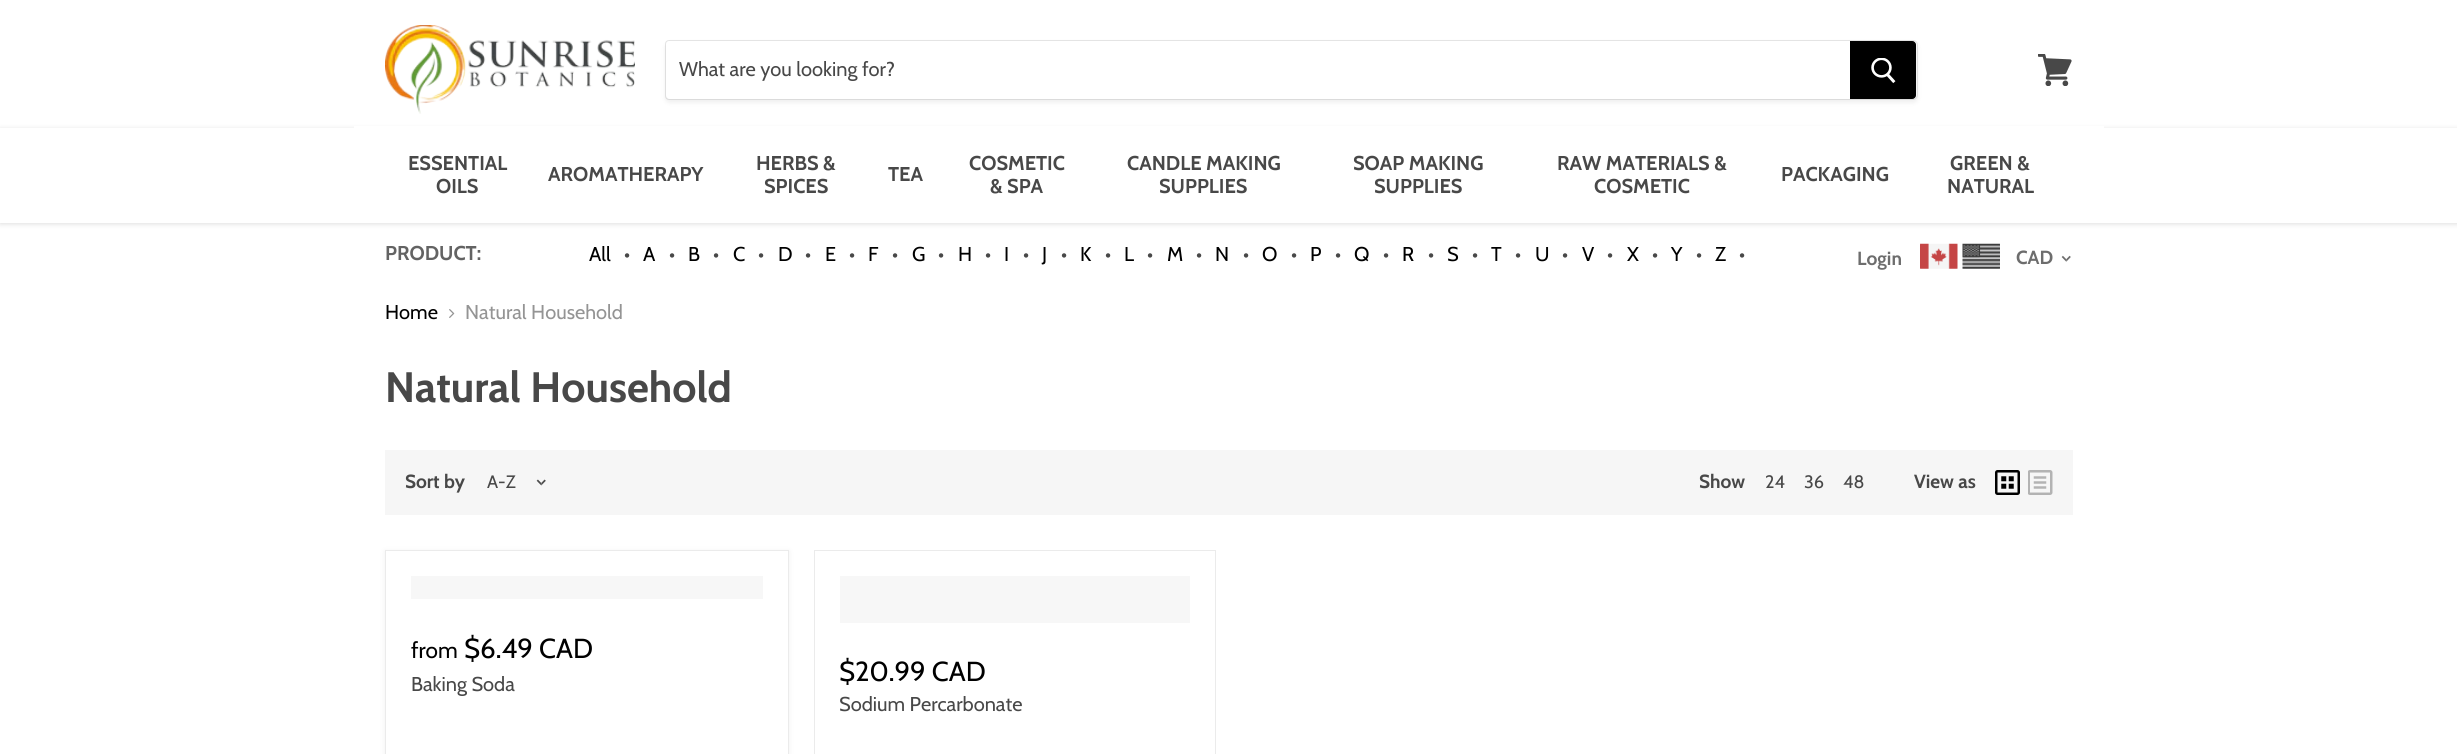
import math
import cairo



def rounded_rect(context, x, y, w, h, r):
    context.new_sub_path()
    for i, (u, v) in enumerate([(x + w - r, y + h - r), (x + r, y + h - r), (x + r, y + r), (x + w - r, y + r)]):
        context.arc(u, v, r, i * math.pi / 2, (i + 1) * math.pi / 2)
    context.close_path()


def draw_shadow(context, x, y, w, h, r, blur, alpha):
    context.push_group_with_content(cairo.Content.ALPHA)
    context.set_operator(cairo.Operator.SOURCE)
    for i in range(15, -16, -2):
        e = blur * i / 6
        if min(w, h) + 2 * e > 0:
            context.set_source_rgba(0, 0, 0, alpha * math.erfc((i - 1) / 8.5) / 2)
            rounded_rect(context, x - e, y - e, w + 2 * e, h + 2 * e, max(0, min(r + e + blur * .6, min(w, h) / 2 + e)))
            context.fill()
    context.mask(context.pop_group())


def draw_image(context, path, x, y, w, h):
    context.save()
    context.set_source_surface(cairo.ImageSurface.create_from_png(path), x, y)
    context.rectangle(x, y, w, h)
    context.fill()
    context.restore()


def draw(context):
    context.set_source_rgb(1, 1, 1)
    context.paint()
    context.set_source_rgb(127 / 255, 127 / 255, 127 / 255)
    draw_shadow(context, 0, 129, 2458, 95, 0, 2.5, 0.25)
    context.set_source_rgb(1, 1, 1)
    context.rectangle(354, 126, 1750, 2)
    context.fill()
    draw_image(context, "images/1.png", 385, 25, 250, 89)
    context.set_source_rgb(127 / 255, 127 / 255, 127 / 255)
    draw_shadow(context, 665, 43, 1253, 60, 5, 2, 0.11)
    context.new_path()
    context.move_to(669, 40.5)
    context.line_to(1913, 40.5)
    context.curve_to(1915.5, 40.5, 1917.5, 42.5, 1917.5, 45)
    context.line_to(1917.5, 95)
    context.curve_to(1917.5, 97.5, 1915.5, 99.5, 1913, 99.5)
    context.line_to(669, 99.5)
    context.curve_to(667, 99.5, 665.5, 98, 665.5, 96)
    context.line_to(665.5, 44)
    context.curve_to(665.5, 42, 667, 40.5, 669, 40.5)
    context.close_path()
    context.set_source_rgba(127 / 255, 127 / 255, 127 / 255, 0.2)
    context.set_line_width(1)
    context.stroke()
    context.set_source_rgb(1, 1, 1)
    context.new_path()
    context.move_to(670, 41)
    context.line_to(1850, 41)
    context.line_to(1850, 99)
    context.line_to(670, 99)
    context.curve_to(668, 99, 666, 97, 666, 95)
    context.line_to(666, 45)
    context.curve_to(666, 43, 668, 41, 670, 41)
    context.close_path()
    context.fill()
    context.set_source_rgb(0, 0, 0)
    context.new_path()
    context.move_to(1850.5, 41.5)
    context.line_to(1912, 41.5)
    context.curve_to(1914, 41.5, 1915.5, 43, 1915.5, 45)
    context.line_to(1915.5, 95)
    context.curve_to(1915.5, 97, 1914, 98.5, 1912, 98.5)
    context.line_to(1850.5, 98.5)
    context.close_path()
    context.fill_preserve()
    context.stroke()
    draw_image(context, "images/2.png", 1871, 58, 25, 26)
    draw_image(context, "images/3.png", 2038, 54, 34, 32)
    context.set_source_rgb(1, 1, 1)
    context.rectangle(0, 128, 2457, 95)
    context.fill()
    draw_image(context, "images/4.png", 1920, 243, 38, 26)
    draw_image(context, "images/5.png", 1962, 243, 38, 26)
    draw_image(context, "images/6.png", 2061, 255, 10, 7)
    draw_image(context, "images/7.png", 449, 309, 6, 9)
    context.set_source_rgb(246 / 255, 246 / 255, 246 / 255)
    context.rectangle(385, 450, 1688, 65)
    context.fill()
    draw_image(context, "images/8.png", 536, 479, 10, 7)
    draw_image(context, "images/9.png", 1995, 470, 25, 25)
    draw_image(context, "images/10.png", 2028, 470, 25, 25)
    context.set_source_rgb(127 / 255, 127 / 255, 127 / 255)
    draw_shadow(context, 385, 551, 404, 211, 0, 2.5, 0.11)
    context.set_source_rgb(1, 1, 1)
    context.rectangle(385.5, 550.5, 403, 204)
    context.fill_preserve()
    context.set_source_rgb(235 / 255, 235 / 255, 235 / 255)
    context.stroke()
    context.set_source_rgb(247 / 255, 247 / 255, 247 / 255)
    context.rectangle(411, 576, 352, 23)
    context.fill()
    context.rectangle(814.5, 550.5, 401, 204)
    context.set_source_rgb(235 / 255, 235 / 255, 235 / 255)
    context.stroke()
    context.set_source_rgb(247 / 255, 247 / 255, 247 / 255)
    context.rectangle(840, 576, 350, 47)
    context.fill()
    context.select_font_face("Cabin")
    context.set_font_size(20)
    context.set_source_rgb(72 / 255, 72 / 255, 72 / 255)
    context.move_to(679, 76)
    context.show_text("What are you looking for?")
    context.select_font_face("Cabin", cairo.FontSlant.NORMAL, cairo.FontWeight.BOLD)
    context.move_to(408, 170)
    context.show_text("ESSENTIAL")
    context.move_to(436, 193)
    context.show_text("OILS")
    context.move_to(548, 181)
    context.show_text("AROMATHERAPY")
    context.move_to(756, 170)
    context.show_text("HERBS &")
    context.move_to(764, 193)
    context.show_text("SPICES")
    context.move_to(888, 181)
    context.show_text("TEA")
    context.move_to(969, 170)
    context.show_text("COSMETIC")
    context.move_to(990, 193)
    context.show_text("& SPA")
    context.move_to(1127, 170)
    context.show_text("CANDLE MAKING")
    context.move_to(1159, 193)
    context.show_text("SUPPLIES")
    context.move_to(1353, 170)
    context.show_text("SOAP MAKING")
    context.move_to(1374, 193)
    context.show_text("SUPPLIES")
    context.move_to(1557, 170)
    context.show_text("RAW MATERIALS &")
    context.move_to(1594, 193)
    context.show_text("COSMETIC")
    context.move_to(1781, 181)
    context.show_text("PACKAGING")
    context.move_to(1950, 170)
    context.show_text("GREEN &")
    context.move_to(1947, 193)
    context.show_text("NATURAL")
    context.set_font_size(19)
    context.set_source_rgb(109 / 255, 109 / 255, 109 / 255)
    context.move_to(1857, 265)
    context.show_text("Login")
    context.move_to(2016, 264)
    context.show_text("CAD")
    context.set_font_size(20)
    context.set_source_rgb(99 / 255, 99 / 255, 99 / 255)
    context.move_to(385, 260)
    context.show_text("PRODUCT:")
    context.select_font_face("Cabin")
    context.set_source_rgb(0, 0, 0)
    context.move_to(589, 261)
    context.show_text("All")
    context.set_source_rgb(72 / 255, 72 / 255, 72 / 255)
    context.move_to(624, 261)
    context.show_text("•")
    context.set_source_rgb(0, 0, 0)
    context.move_to(643, 261)
    context.show_text("A")
    context.set_source_rgb(72 / 255, 72 / 255, 72 / 255)
    context.move_to(669, 261)
    context.show_text("•")
    context.set_source_rgb(0, 0, 0)
    context.move_to(688, 261)
    context.show_text("B")
    context.set_source_rgb(72 / 255, 72 / 255, 72 / 255)
    context.move_to(713, 261)
    context.show_text("•")
    context.set_source_rgb(0, 0, 0)
    context.move_to(733, 261)
    context.show_text("C")
    context.set_source_rgb(72 / 255, 72 / 255, 72 / 255)
    context.move_to(758, 261)
    context.show_text("•")
    context.set_source_rgb(0, 0, 0)
    context.move_to(778, 261)
    context.show_text("D")
    context.set_source_rgb(72 / 255, 72 / 255, 72 / 255)
    context.move_to(805, 261)
    context.show_text("•")
    context.set_source_rgb(0, 0, 0)
    context.move_to(825, 261)
    context.show_text("E")
    context.set_source_rgb(72 / 255, 72 / 255, 72 / 255)
    context.move_to(849, 261)
    context.show_text("•")
    context.set_source_rgb(0, 0, 0)
    context.move_to(868, 261)
    context.show_text("F")
    context.set_source_rgb(72 / 255, 72 / 255, 72 / 255)
    context.move_to(892, 261)
    context.show_text("•")
    context.set_source_rgb(0, 0, 0)
    context.move_to(912, 261)
    context.show_text("G")
    context.set_source_rgb(72 / 255, 72 / 255, 72 / 255)
    context.move_to(938, 261)
    context.show_text("•")
    context.set_source_rgb(0, 0, 0)
    context.move_to(958, 261)
    context.show_text("H")
    context.set_source_rgb(72 / 255, 72 / 255, 72 / 255)
    context.move_to(985, 261)
    context.show_text("•")
    context.set_source_rgb(0, 0, 0)
    context.move_to(1004, 261)
    context.show_text("I")
    context.set_source_rgb(72 / 255, 72 / 255, 72 / 255)
    context.move_to(1023, 261)
    context.show_text("•")
    context.set_source_rgb(0, 0, 0)
    context.move_to(1042, 261)
    context.show_text("J")
    context.set_source_rgb(72 / 255, 72 / 255, 72 / 255)
    context.move_to(1061, 261)
    context.show_text("•")
    context.set_source_rgb(0, 0, 0)
    context.move_to(1080, 261)
    context.show_text("K")
    context.set_source_rgb(72 / 255, 72 / 255, 72 / 255)
    context.move_to(1105, 261)
    context.show_text("•")
    context.set_source_rgb(0, 0, 0)
    context.move_to(1124, 261)
    context.show_text("L")
    context.set_source_rgb(72 / 255, 72 / 255, 72 / 255)
    context.move_to(1147, 261)
    context.show_text("•")
    context.set_source_rgb(0, 0, 0)
    context.move_to(1167, 261)
    context.show_text("M")
    context.set_source_rgb(72 / 255, 72 / 255, 72 / 255)
    context.move_to(1196, 261)
    context.show_text("•")
    context.set_source_rgb(0, 0, 0)
    context.move_to(1215, 261)
    context.show_text("N")
    context.set_source_rgb(72 / 255, 72 / 255, 72 / 255)
    context.move_to(1243, 261)
    context.show_text("•")
    context.set_source_rgb(0, 0, 0)
    context.move_to(1262, 261)
    context.show_text("O")
    context.set_source_rgb(72 / 255, 72 / 255, 72 / 255)
    context.move_to(1291, 261)
    context.show_text("•")
    context.set_source_rgb(0, 0, 0)
    context.move_to(1310, 261)
    context.show_text("P")
    context.set_source_rgb(72 / 255, 72 / 255, 72 / 255)
    context.move_to(1335, 261)
    context.show_text("•")
    context.set_source_rgb(0, 0, 0)
    context.move_to(1354, 261)
    context.show_text("Q")
    context.set_source_rgb(72 / 255, 72 / 255, 72 / 255)
    context.move_to(1383, 261)
    context.show_text("•")
    context.set_source_rgb(0, 0, 0)
    context.move_to(1402, 261)
    context.show_text("R")
    context.set_source_rgb(72 / 255, 72 / 255, 72 / 255)
    context.move_to(1428, 261)
    context.show_text("•")
    context.set_source_rgb(0, 0, 0)
    context.move_to(1447, 261)
    context.show_text("S")
    context.set_source_rgb(72 / 255, 72 / 255, 72 / 255)
    context.move_to(1472, 261)
    context.show_text("•")
    context.set_source_rgb(0, 0, 0)
    context.move_to(1491, 261)
    context.show_text("T")
    context.set_source_rgb(72 / 255, 72 / 255, 72 / 255)
    context.move_to(1515, 261)
    context.show_text("•")
    context.set_source_rgb(0, 0, 0)
    context.move_to(1535, 261)
    context.show_text("U")
    context.set_source_rgb(72 / 255, 72 / 255, 72 / 255)
    context.move_to(1562, 261)
    context.show_text("•")
    context.set_source_rgb(0, 0, 0)
    context.move_to(1582, 261)
    context.show_text("V")
    context.set_source_rgb(72 / 255, 72 / 255, 72 / 255)
    context.move_to(1607, 261)
    context.show_text("•")
    context.set_source_rgb(0, 0, 0)
    context.move_to(1627, 261)
    context.show_text("X")
    context.set_source_rgb(72 / 255, 72 / 255, 72 / 255)
    context.move_to(1652, 261)
    context.show_text("•")
    context.set_source_rgb(0, 0, 0)
    context.move_to(1671, 261)
    context.show_text("Y")
    context.set_source_rgb(72 / 255, 72 / 255, 72 / 255)
    context.move_to(1696, 261)
    context.show_text("•")
    context.set_source_rgb(0, 0, 0)
    context.move_to(1715, 261)
    context.show_text("Z")
    context.set_source_rgb(72 / 255, 72 / 255, 72 / 255)
    context.move_to(1739, 261)
    context.show_text("•")
    context.set_source_rgb(0, 0, 0)
    context.move_to(385, 319)
    context.show_text("Home")
    context.set_source_rgb(148 / 255, 148 / 255, 148 / 255)
    context.move_to(465, 319)
    context.show_text("Natural Household")
    context.select_font_face("Cabin", cairo.FontSlant.NORMAL, cairo.FontWeight.BOLD)
    context.set_font_size(42.5)
    context.set_source_rgb(72 / 255, 72 / 255, 72 / 255)
    context.move_to(385, 402)
    context.show_text("Natural Household")
    context.set_font_size(19)
    context.move_to(405, 488)
    context.show_text("Sort by")
    context.select_font_face("Cabin")
    context.set_font_size(18)
    context.move_to(487, 488)
    context.show_text("A-Z")
    context.select_font_face("Cabin", cairo.FontSlant.NORMAL, cairo.FontWeight.BOLD)
    context.set_font_size(19)
    context.move_to(1699, 488)
    context.show_text("Show")
    context.select_font_face("Cabin")
    context.set_font_size(18)
    context.move_to(1765, 488)
    context.show_text("24")
    context.move_to(1804, 488)
    context.show_text("36")
    context.move_to(1843, 488)
    context.show_text("48")
    context.select_font_face("Cabin", cairo.FontSlant.NORMAL, cairo.FontWeight.BOLD)
    context.set_font_size(19)
    context.move_to(1914, 488)
    context.show_text("View as")
    context.select_font_face("Cabin")
    context.set_font_size(22.5)
    context.set_source_rgb(0, 0, 0)
    context.move_to(411, 658)
    context.show_text("from")
    context.set_font_size(27.5)
    context.move_to(464, 658)
    context.show_text("$6.49 CAD")
    context.set_font_size(20)
    context.set_source_rgb(72 / 255, 72 / 255, 72 / 255)
    context.move_to(411, 691)
    context.show_text("Baking Soda")
    context.set_font_size(27.5)
    context.set_source_rgb(0, 0, 0)
    context.move_to(839, 681)
    context.show_text("$20.99 CAD")
    context.set_font_size(20)
    context.set_source_rgb(72 / 255, 72 / 255, 72 / 255)
    context.move_to(839, 711)
    context.show_text("Sodium Percarbonate")


surface = cairo.ImageSurface(cairo.Format.RGB24, 2457, 754)
context = cairo.Context(surface)
options = cairo.FontOptions()
options.set_hint_metrics(cairo.HintMetrics.OFF)
options.set_hint_style(cairo.HintStyle.NONE)
context.set_font_options(options)
context.set_miter_limit(4)
draw(context)
surface.write_to_png("out.png")
